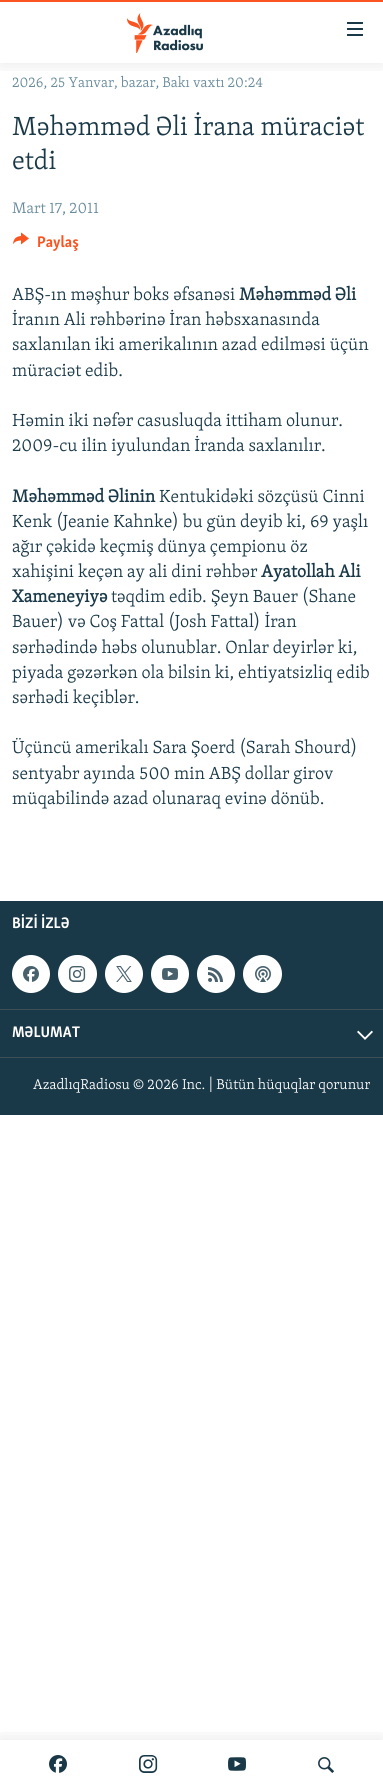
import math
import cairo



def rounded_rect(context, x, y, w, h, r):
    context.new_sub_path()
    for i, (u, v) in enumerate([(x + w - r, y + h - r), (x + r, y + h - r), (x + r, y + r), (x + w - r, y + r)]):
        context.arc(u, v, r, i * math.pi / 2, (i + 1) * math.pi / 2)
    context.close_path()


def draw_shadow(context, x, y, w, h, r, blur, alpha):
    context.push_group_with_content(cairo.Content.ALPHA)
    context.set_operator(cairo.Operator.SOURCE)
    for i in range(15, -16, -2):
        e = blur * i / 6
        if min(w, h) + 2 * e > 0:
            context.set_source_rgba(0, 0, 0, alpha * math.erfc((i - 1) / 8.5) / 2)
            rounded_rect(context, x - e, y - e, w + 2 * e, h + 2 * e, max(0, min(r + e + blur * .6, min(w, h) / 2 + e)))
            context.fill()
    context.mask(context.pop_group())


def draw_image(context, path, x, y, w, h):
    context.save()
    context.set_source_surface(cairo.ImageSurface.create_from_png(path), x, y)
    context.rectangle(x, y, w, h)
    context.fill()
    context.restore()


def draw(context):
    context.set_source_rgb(1, 1, 1)
    context.paint()
    context.save()
    context.rectangle(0, 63, 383, 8)
    context.clip()
    context.set_source_rgb(0, 0, 0)
    draw_shadow(context, 0, 0, 383, 63, 0, 10, 0.1)
    context.restore()
    context.set_source_rgb(250 / 255, 84 / 255, 32 / 255)
    context.rectangle(0, 0, 383, 2)
    context.fill()
    draw_image(context, "images/1.png", 127, 13, 76, 40)
    draw_image(context, "images/2.png", 347, 22, 16, 14)
    context.save()
    context.rectangle(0, 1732, 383, 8)
    context.clip()
    context.set_source_rgb(0, 0, 0)
    draw_shadow(context, 0, 1740, 383, 50, 0, 10, 0.1)
    context.restore()
    draw_image(context, "images/3.png", 49, 1755, 18, 18)
    draw_image(context, "images/4.png", 139, 1755, 19, 18)
    draw_image(context, "images/5.png", 228, 1757, 18, 14)
    draw_image(context, "images/6.png", 318, 1757, 16, 16)
    draw_image(context, "images/7.png", 13, 232, 16, 13)
    context.set_source_rgb(26 / 255, 57 / 255, 72 / 255)
    context.rectangle(0, 901, 383, 214)
    context.fill()
    context.set_source_rgb(62 / 255, 79 / 255, 87 / 255)
    context.rectangle(0, 1057, 383, 1)
    context.fill()
    context.set_source_rgb(1, 1, 1)
    context.arc(31, 974, 19, 0, 2 * math.pi)
    context.fill()
    draw_image(context, "images/8.png", 23, 966, 16, 16)
    rounded_rect(context, 58, 955, 39, 38, 19)
    context.fill()
    draw_image(context, "images/9.png", 69, 966, 17, 16)
    context.arc(124, 974, 19, 0, 2 * math.pi)
    context.fill()
    draw_image(context, "images/10.png", 116, 966, 16, 16)
    context.arc(170, 974, 19, 0, 2 * math.pi)
    context.fill()
    draw_image(context, "images/11.png", 162, 968, 16, 12)
    context.arc(216, 974, 19, 0, 2 * math.pi)
    context.fill()
    draw_image(context, "images/12.png", 208, 967, 15, 15)
    rounded_rect(context, 243, 955, 39, 38, 19)
    context.fill()
    draw_image(context, "images/13.png", 255, 966, 16, 16)
    context.set_source_rgb(62 / 255, 79 / 255, 87 / 255)
    context.rectangle(0, 1009, 383, 1)
    context.fill()
    draw_image(context, "images/14.png", 357, 1030, 16, 10)
    context.select_font_face("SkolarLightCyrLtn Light")
    context.set_font_size(14.6)
    context.set_source_rgb(103 / 255, 138 / 255, 155 / 255)
    context.move_to(12, 87)
    context.show_text("2026, 25 Yanvar, bazar, Bakı vaxtı 20:24")
    context.set_font_size(27)
    context.set_source_rgb(26 / 255, 57 / 255, 72 / 255)
    context.move_to(12, 135)
    context.show_text("Məhəmməd Əli İrana müraciət")
    context.move_to(12, 169)
    context.show_text("etdi")
    context.set_font_size(15.75)
    context.set_source_rgb(103 / 255, 138 / 255, 155 / 255)
    context.move_to(12, 213)
    context.show_text("Mart 17, 2011")
    context.select_font_face("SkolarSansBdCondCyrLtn", cairo.FontSlant.NORMAL, cairo.FontWeight.BOLD)
    context.set_source_rgb(250 / 255, 84 / 255, 32 / 255)
    context.move_to(37, 247)
    context.show_text("Paylaş")
    context.select_font_face("SkolarLightCyrLtn Light")
    context.set_font_size(18)
    context.set_source_rgb(26 / 255, 57 / 255, 72 / 255)
    context.move_to(12, 300)
    context.show_text("ABŞ-ın məşhur boks əfsanəsi")
    context.select_font_face("SkolarLightCyrLtn", cairo.FontSlant.NORMAL, cairo.FontWeight.BOLD)
    context.move_to(239, 300)
    context.show_text("Məhəmməd Əli")
    context.select_font_face("SkolarLightCyrLtn Light")
    context.move_to(12, 325)
    context.show_text("İranın Ali rəhbərinə İran həbsxanasında")
    context.move_to(12, 350)
    context.show_text("saxlanılan iki amerikalının azad edilməsi üçün")
    context.move_to(12, 376)
    context.show_text("müraciət edib.")
    context.move_to(12, 426)
    context.show_text("Həmin iki nəfər casusluqda ittiham olunur.")
    context.move_to(12, 451)
    context.show_text("2009-cu ilin iyulundan İranda saxlanılır.")
    context.select_font_face("SkolarLightCyrLtn", cairo.FontSlant.NORMAL, cairo.FontWeight.BOLD)
    context.move_to(12, 502)
    context.show_text("Məhəmməd Əlinin")
    context.select_font_face("SkolarLightCyrLtn Light")
    context.move_to(159, 502)
    context.show_text("Kentukidəki sözçüsü Cinni")
    context.move_to(12, 527)
    context.show_text("Kenk (Jeanie Kahnke) bu gün deyib ki, 69 yaşlı")
    context.move_to(12, 552)
    context.show_text("ağır çəkidə keçmiş dünya çempionu öz")
    context.move_to(12, 577)
    context.show_text("xahişini keçən ay ali dini rəhbər")
    context.select_font_face("SkolarLightCyrLtn", cairo.FontSlant.NORMAL, cairo.FontWeight.BOLD)
    context.move_to(261, 577)
    context.show_text("Ayatollah Ali")
    context.move_to(12, 602)
    context.show_text("Xameneyiyə")
    context.select_font_face("SkolarLightCyrLtn Light")
    context.move_to(111, 602)
    context.show_text("təqdim edib. Şeyn Bauer (Shane")
    context.move_to(12, 627)
    context.show_text("Bauer) və Coş Fattal (Josh Fattal) İran")
    context.move_to(12, 653)
    context.show_text("sərhədində həbs olunublar. Onlar deyirlər ki,")
    context.move_to(12, 678)
    context.show_text("piyada gəzərkən ola bilsin ki, ehtiyatsizliq edib")
    context.move_to(12, 703)
    context.show_text("sərhədi keçiblər.")
    context.move_to(12, 753)
    context.show_text("Üçüncü amerikalı Sara Şoerd (Sarah Shourd)")
    context.move_to(12, 779)
    context.show_text("sentyabr ayında 500 min ABŞ dollar girov")
    context.move_to(12, 804)
    context.show_text("müqabilində azad olunaraq evinə dönüb.")
    context.select_font_face("SkolarSansBdCondCyrLtn", cairo.FontSlant.NORMAL, cairo.FontWeight.BOLD)
    context.set_font_size(15.75)
    context.set_source_rgb(1, 1, 1)
    context.move_to(12, 928)
    context.show_text("BİZİ İZLƏ")
    context.move_to(12, 1037)
    context.show_text("MƏLUMAT")
    context.select_font_face("SkolarLightCyrLtn Light")
    context.set_font_size(14.6)
    context.move_to(33, 1089)
    context.show_text("AzadlıqRadiosu © 2026 Inc. | Bütün hüquqlar qorunur")


surface = cairo.ImageSurface(cairo.Format.RGB24, 383, 1790)
context = cairo.Context(surface)
options = cairo.FontOptions()
options.set_hint_metrics(cairo.HintMetrics.OFF)
options.set_hint_style(cairo.HintStyle.NONE)
context.set_font_options(options)
context.set_miter_limit(4)
draw(context)
surface.write_to_png("out.png")
